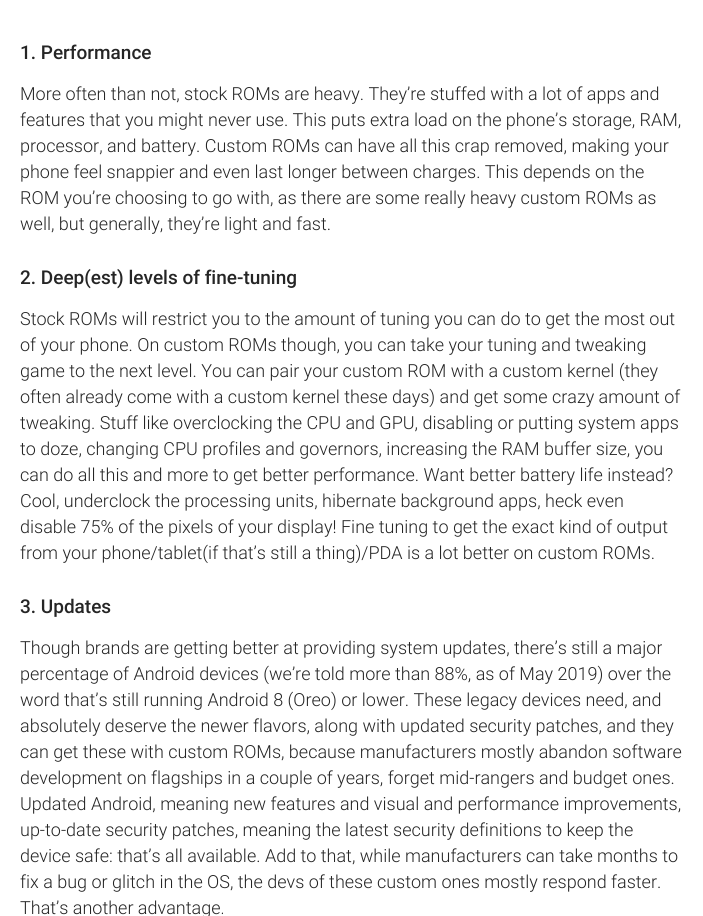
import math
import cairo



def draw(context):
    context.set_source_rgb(1, 1, 1)
    context.paint()
    context.select_font_face("Roboto Medium")
    context.set_font_size(19)
    context.set_source_rgb(37 / 255, 37 / 255, 37 / 255)
    context.move_to(20, 59)
    context.show_text("1. Performance")
    context.select_font_face("Roboto Light")
    context.set_font_size(18)
    context.move_to(20, 100)
    context.show_text("More often than not, stock ROMs are heavy. They’re stuffed with a lot of apps and")
    context.move_to(20, 126)
    context.show_text("features that you might never use. This puts extra load on the phone’s storage, RAM,")
    context.move_to(20, 152)
    context.show_text("processor, and battery. Custom ROMs can have all this crap removed, making your")
    context.move_to(20, 178)
    context.show_text("phone feel snappier and even last longer between charges. This depends on the")
    context.move_to(20, 204)
    context.show_text("ROM you’re choosing to go with, as there are some really heavy custom ROMs as")
    context.move_to(20, 230)
    context.show_text("well, but generally, they’re light and fast.")
    context.select_font_face("Roboto Medium")
    context.set_font_size(19)
    context.move_to(20, 284)
    context.show_text("2. Deep(est) levels of fine-tuning")
    context.select_font_face("Roboto Light")
    context.set_font_size(18)
    context.move_to(20, 325)
    context.show_text("Stock ROMs will restrict you to the amount of tuning you can do to get the most out")
    context.move_to(20, 351)
    context.show_text("of your phone. On custom ROMs though, you can take your tuning and tweaking")
    context.move_to(20, 377)
    context.show_text("game to the next level. You can pair your custom ROM with a custom kernel (they")
    context.move_to(20, 403)
    context.show_text("often already come with a custom kernel these days) and get some crazy amount of")
    context.move_to(20, 429)
    context.show_text("tweaking. Stuff like overclocking the CPU and GPU, disabling or putting system apps")
    context.move_to(20, 455)
    context.show_text("to doze, changing CPU profiles and governors, increasing the RAM buffer size, you")
    context.move_to(20, 481)
    context.show_text("can do all this and more to get better performance. Want better battery life instead?")
    context.move_to(20, 507)
    context.show_text("Cool, underclock the processing units, hibernate background apps, heck even")
    context.move_to(20, 533)
    context.show_text("disable 75% of the pixels of your display! Fine tuning to get the exact kind of output")
    context.move_to(20, 559)
    context.show_text("from your phone/tablet(if that’s still a thing)/PDA is a lot better on custom ROMs.")
    context.select_font_face("Roboto Medium")
    context.set_font_size(19)
    context.move_to(20, 613)
    context.show_text("3. Updates")
    context.select_font_face("Roboto Light")
    context.set_font_size(18)
    context.move_to(20, 654)
    context.show_text("Though brands are getting better at providing system updates, there’s still a major")
    context.move_to(20, 680)
    context.show_text("percentage of Android devices (we’re told more than 88%, as of May 2019) over the")
    context.move_to(20, 706)
    context.show_text("word that’s still running Android 8 (Oreo) or lower. These legacy devices need, and")
    context.move_to(20, 732)
    context.show_text("absolutely deserve the newer flavors, along with updated security patches, and they")
    context.move_to(20, 758)
    context.show_text("can get these with custom ROMs, because manufacturers mostly abandon software")
    context.move_to(20, 784)
    context.show_text("development on flagships in a couple of years, forget mid-rangers and budget ones.")
    context.move_to(20, 810)
    context.show_text("Updated Android, meaning new features and visual and performance improvements,")
    context.move_to(20, 836)
    context.show_text("up-to-date security patches, meaning the latest security definitions to keep the")
    context.move_to(20, 862)
    context.show_text("device safe: that’s all available. Add to that, while manufacturers can take months to")
    context.move_to(20, 888)
    context.show_text("fix a bug or glitch in the OS, the devs of these custom ones mostly respond faster.")
    context.move_to(20, 914)
    context.show_text("That’s another advantage.")


surface = cairo.ImageSurface(cairo.Format.RGB24, 703, 916)
context = cairo.Context(surface)
options = cairo.FontOptions()
options.set_hint_metrics(cairo.HintMetrics.OFF)
options.set_hint_style(cairo.HintStyle.NONE)
context.set_font_options(options)
context.set_miter_limit(4)
draw(context)
surface.write_to_png("out.png")
